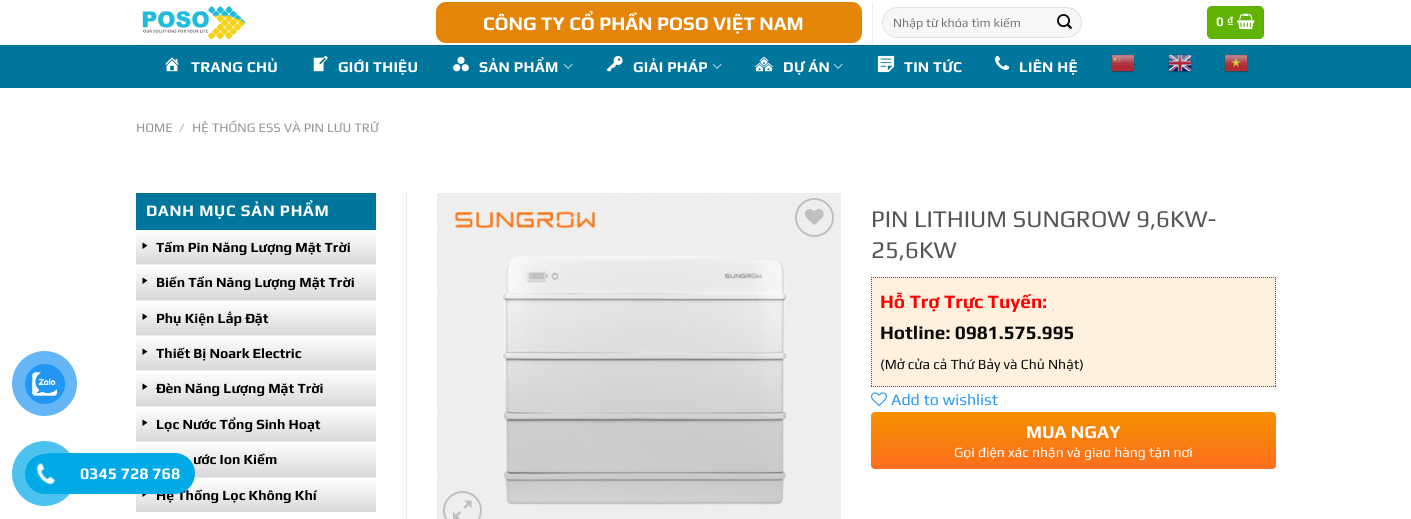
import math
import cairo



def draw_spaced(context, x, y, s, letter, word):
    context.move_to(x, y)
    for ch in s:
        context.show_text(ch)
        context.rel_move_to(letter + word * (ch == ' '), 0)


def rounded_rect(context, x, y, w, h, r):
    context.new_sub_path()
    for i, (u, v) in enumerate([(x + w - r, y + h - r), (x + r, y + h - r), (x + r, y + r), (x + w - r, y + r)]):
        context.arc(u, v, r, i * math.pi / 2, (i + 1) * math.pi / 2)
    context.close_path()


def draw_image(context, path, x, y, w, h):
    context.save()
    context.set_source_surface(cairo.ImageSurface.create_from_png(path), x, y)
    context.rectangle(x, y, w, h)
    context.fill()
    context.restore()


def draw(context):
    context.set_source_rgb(1, 1, 1)
    context.paint()
    context.set_source_rgb(100 / 255, 182 / 255, 247 / 255)
    context.arc(44.5, 383.5, 32.5, 0, 2 * math.pi)
    context.fill()
    context.set_source_rgb(33 / 255, 150 / 255, 243 / 255)
    context.arc(45, 384, 20, 0, 2 * math.pi)
    context.fill()
    draw_image(context, "images/1.png", 32, 372, 26, 24)
    draw_image(context, "images/3.png", 142, 6, 104, 34)
    context.set_source_rgb(228 / 255, 133 / 255, 8 / 255)
    rounded_rect(context, 436, 2, 426, 41, 10)
    context.fill()
    context.set_source_rgb(236 / 255, 236 / 255, 236 / 255)
    context.rectangle(872, 2, 1, 41)
    context.fill()
    context.set_source_rgb(247 / 255, 247 / 255, 247 / 255)
    rounded_rect(context, 882.5, 7.5, 199, 30, 15)
    context.fill_preserve()
    context.set_source_rgb(225 / 255, 225 / 255, 225 / 255)
    context.set_line_width(1)
    context.stroke()
    draw_image(context, "images/4.png", 1057, 14, 15, 15)
    context.set_source_rgb(96 / 255, 179 / 255, 1 / 255)
    rounded_rect(context, 1207, 6, 57, 33, 5)
    context.fill()
    context.rectangle(1207.5, 6.5, 56, 32)
    context.set_source_rgba(0, 0, 0, 0.05)
    context.stroke()
    draw_image(context, "images/5.png", 1237, 13, 18, 17)
    context.set_source_rgb(0, 118 / 255, 156 / 255)
    context.rectangle(0, 45, 1411, 43)
    context.fill()
    context.set_source_rgb(1 / 255, 107 / 255, 141 / 255)
    context.rectangle(136, 45, 1140, 1)
    context.fill()
    draw_image(context, "images/6.png", 165, 57, 14, 15)
    draw_image(context, "images/7.png", 313, 55, 15, 17)
    draw_image(context, "images/8.png", 453, 56, 16, 16)
    draw_image(context, "images/9.png", 563, 63, 10, 6)
    draw_image(context, "images/10.png", 607, 56, 16, 16)
    draw_image(context, "images/9.png", 712, 63, 10, 6)
    draw_image(context, "images/11.png", 755, 56, 18, 16)
    draw_image(context, "images/9.png", 833, 63, 10, 6)
    draw_image(context, "images/12.png", 877, 55, 18, 18)
    draw_image(context, "images/13.png", 995, 55, 15, 15)
    draw_image(context, "images/14.png", 1111, 54, 24, 19)
    draw_image(context, "images/15.png", 1168, 54, 24, 19)
    draw_image(context, "images/16.png", 1224, 54, 24, 19)
    context.set_source_rgb(0, 118 / 255, 156 / 255)
    context.rectangle(136, 193, 240, 37)
    context.fill()
    gradient = cairo.LinearGradient(256, 230, 256, 264)
    gradient.add_color_stop_rgba(0, 1, 1, 1, 1)
    gradient.add_color_stop_rgba(1, 216 / 255, 216 / 255, 216 / 255, 1)
    context.set_source(gradient)
    context.rectangle(136, 232, 240, 32)
    context.fill()
    context.set_source_rgb(0, 0, 0)
    context.new_path()
    context.move_to(142.5, 242.5)
    context.line_to(147.5, 245.5)
    context.line_to(142.5, 249)
    context.close_path()
    context.fill()
    context.set_source_rgb(236 / 255, 236 / 255, 236 / 255)
    context.rectangle(136, 264, 240, 1)
    context.fill()
    gradient = cairo.LinearGradient(256, 265, 256, 300)
    gradient.add_color_stop_rgba(0, 1, 1, 1, 1)
    gradient.add_color_stop_rgba(1, 216 / 255, 216 / 255, 216 / 255, 1)
    context.set_source(gradient)
    context.rectangle(136, 267, 240, 33)
    context.fill()
    context.set_source_rgb(0, 0, 0)
    context.new_path()
    context.move_to(142.5, 277.5)
    context.line_to(147.5, 280.5)
    context.line_to(142.5, 284)
    context.close_path()
    context.fill()
    context.set_source_rgb(236 / 255, 236 / 255, 236 / 255)
    context.rectangle(136, 300, 240, 1)
    context.fill()
    gradient = cairo.LinearGradient(256, 301, 256, 335)
    gradient.add_color_stop_rgba(0, 1, 1, 1, 1)
    gradient.add_color_stop_rgba(1, 216 / 255, 216 / 255, 216 / 255, 1)
    context.set_source(gradient)
    context.rectangle(136, 303, 240, 32)
    context.fill()
    context.set_source_rgb(0, 0, 0)
    context.new_path()
    context.move_to(142.5, 313.5)
    context.line_to(147.5, 316.5)
    context.line_to(142.5, 320)
    context.close_path()
    context.fill()
    context.set_source_rgb(236 / 255, 236 / 255, 236 / 255)
    context.rectangle(136, 335, 240, 1)
    context.fill()
    gradient = cairo.LinearGradient(256, 336, 256, 370)
    gradient.add_color_stop_rgba(0, 1, 1, 1, 1)
    gradient.add_color_stop_rgba(1, 216 / 255, 216 / 255, 216 / 255, 1)
    context.set_source(gradient)
    context.rectangle(136, 338, 240, 32)
    context.fill()
    context.set_source_rgb(0, 0, 0)
    context.new_path()
    context.move_to(142.5, 348.5)
    context.line_to(147.5, 351.5)
    context.line_to(142.5, 355)
    context.close_path()
    context.fill()
    context.set_source_rgb(236 / 255, 236 / 255, 236 / 255)
    context.rectangle(136, 370, 240, 1)
    context.fill()
    gradient = cairo.LinearGradient(256, 371, 256, 406)
    gradient.add_color_stop_rgba(0, 1, 1, 1, 1)
    gradient.add_color_stop_rgba(1, 216 / 255, 216 / 255, 216 / 255, 1)
    context.set_source(gradient)
    context.rectangle(136, 373, 240, 33)
    context.fill()
    context.set_source_rgb(0, 0, 0)
    context.new_path()
    context.move_to(142.5, 383.5)
    context.line_to(147.5, 386.5)
    context.line_to(142.5, 390)
    context.close_path()
    context.fill()
    context.set_source_rgb(236 / 255, 236 / 255, 236 / 255)
    context.rectangle(136, 406, 240, 1)
    context.fill()
    gradient = cairo.LinearGradient(256, 407, 256, 441)
    gradient.add_color_stop_rgba(0, 1, 1, 1, 1)
    gradient.add_color_stop_rgba(1, 216 / 255, 216 / 255, 216 / 255, 1)
    context.set_source(gradient)
    context.rectangle(136, 409, 240, 32)
    context.fill()
    context.set_source_rgb(0, 0, 0)
    context.new_path()
    context.move_to(142.5, 419.5)
    context.line_to(147.5, 422.5)
    context.line_to(142.5, 426)
    context.close_path()
    context.fill()
    context.set_source_rgb(236 / 255, 236 / 255, 236 / 255)
    context.rectangle(136, 441, 240, 1)
    context.fill()
    gradient = cairo.LinearGradient(256, 442, 256, 477)
    gradient.add_color_stop_rgba(0, 1, 1, 1, 1)
    gradient.add_color_stop_rgba(1, 216 / 255, 216 / 255, 216 / 255, 1)
    context.set_source(gradient)
    context.rectangle(136, 444, 240, 33)
    context.fill()
    context.set_source_rgb(236 / 255, 236 / 255, 236 / 255)
    context.rectangle(194, 477, 182, 1)
    context.fill()
    gradient = cairo.LinearGradient(256, 478, 256, 512)
    gradient.add_color_stop_rgba(0, 1, 1, 1, 1)
    gradient.add_color_stop_rgba(1, 216 / 255, 216 / 255, 216 / 255, 1)
    context.set_source(gradient)
    context.rectangle(136, 480, 240, 32)
    context.fill()
    context.set_source_rgb(0, 0, 0)
    context.new_path()
    context.move_to(142.5, 490.5)
    context.line_to(147.5, 493.5)
    context.line_to(142.5, 497)
    context.close_path()
    context.fill()
    context.set_source_rgb(236 / 255, 236 / 255, 236 / 255)
    context.rectangle(406, 193, 1, 326)
    context.fill()
    draw_image(context, "images/17.png", 437, 193, 404, 326)
    context.arc(814.5, 217.5, 18.5, 0, 2 * math.pi)
    context.set_source_rgb(192 / 255, 192 / 255, 192 / 255)
    context.set_line_width(2)
    context.stroke()
    draw_image(context, "images/18.png", 805, 209, 19, 16)
    context.arc(462.5, 510.5, 18.5, 0, 2 * math.pi)
    context.stroke()
    draw_image(context, "images/19.png", 453, 500, 19, 19)
    context.set_source_rgb(1, 241 / 255, 221 / 255)
    context.rectangle(871, 277, 405, 110)
    context.fill()
    context.new_path()
    context.move_to(871, 277.5)
    context.line_to(1276, 277.5)
    context.set_source_rgb(1, 0, 0)
    context.set_line_width(1)
    context.set_dash([1, 1])
    context.stroke()
    context.new_path()
    context.move_to(1275.5, 277)
    context.line_to(1275.5, 387)
    context.stroke()
    context.new_path()
    context.move_to(871, 386.5)
    context.line_to(1276, 386.5)
    context.stroke()
    context.new_path()
    context.move_to(871.5, 277)
    context.line_to(871.5, 387)
    context.stroke()
    draw_image(context, "images/20.png", 871, 392, 16, 15)
    gradient = cairo.LinearGradient(1074, 412, 1074, 469)
    gradient.add_color_stop_rgba(0, 245 / 255, 144 / 255, 0, 1)
    gradient.add_color_stop_rgba(1, 253 / 255, 110 / 255, 29 / 255, 1)
    context.set_source(gradient)
    rounded_rect(context, 871, 412, 405, 57, 4)
    context.fill()
    context.select_font_face("Play", cairo.FontSlant.NORMAL, cairo.FontWeight.BOLD)
    context.set_font_size(19.25)
    context.set_source_rgb(1, 1, 1)
    context.move_to(483, 30)
    context.show_text("CÔNG TY CỔ PHẦN POSO VIỆT NAM")
    context.select_font_face("Play")
    context.set_font_size(12.5)
    context.set_source_rgb(117 / 255, 117 / 255, 117 / 255)
    context.move_to(893, 27)
    context.show_text("Nhập từ khóa tìm kiếm")
    context.select_font_face("Play", cairo.FontSlant.NORMAL, cairo.FontWeight.BOLD)
    context.set_font_size(13)
    context.set_source_rgb(1, 1, 1)
    context.move_to(1216, 26)
    context.show_text("0")
    context.select_font_face("Liberation Sans", cairo.FontSlant.NORMAL, cairo.FontWeight.BOLD)
    context.move_to(1227, 26)
    context.show_text("₫")
    context.select_font_face("Play", cairo.FontSlant.NORMAL, cairo.FontWeight.BOLD)
    context.set_font_size(15)
    draw_spaced(context, 191, 72, "TRANG CHỦ", 0.25, 0)
    draw_spaced(context, 338, 72, "GIỚI THIỆU", 0.25, 0)
    draw_spaced(context, 479, 72, "SẢN PHẨM", 0.25, 0)
    draw_spaced(context, 633, 72, "GIẢI PHÁP", 0.25, 0)
    draw_spaced(context, 783, 72, "DỰ ÁN", 0.25, 0)
    draw_spaced(context, 904, 72, "TIN TỨC", 0.25, 0)
    draw_spaced(context, 1019, 72, "LIÊN HỆ", 0.25, 0)
    context.select_font_face("Play")
    context.set_font_size(13)
    context.set_source_rgb(148 / 255, 148 / 255, 148 / 255)
    context.move_to(136, 132)
    context.show_text("HOME")
    context.set_source_rgb(178 / 255, 178 / 255, 178 / 255)
    context.move_to(179, 132)
    context.show_text("/")
    context.set_source_rgb(148 / 255, 148 / 255, 148 / 255)
    context.move_to(192, 132)
    context.show_text("HỆ THỐNG ESS VÀ PIN LƯU TRỮ")
    context.select_font_face("Play", cairo.FontSlant.NORMAL, cairo.FontWeight.BOLD)
    context.set_font_size(16)
    context.set_source_rgb(1, 1, 1)
    draw_spaced(context, 146, 216, "DANH MỤC SẢN PHẨM", 0.75, 0)
    context.set_font_size(14)
    context.set_source_rgb(0, 0, 0)
    context.move_to(156, 252)
    context.show_text("Tấm Pin Năng Lượng Mặt Trời")
    context.move_to(156, 287)
    context.show_text("Biến Tần Năng Lượng Mặt Trời")
    context.move_to(156, 323)
    context.show_text("Phụ Kiện Lắp Đặt")
    context.move_to(156, 358)
    context.show_text("Thiết Bị Noark Electric")
    context.move_to(156, 393)
    context.show_text("Đèn Năng Lượng Mặt Trời")
    context.move_to(156, 429)
    context.show_text("Lọc Nước Tổng Sinh Hoạt")
    context.move_to(193, 464)
    context.show_text("ước Ion Kiềm")
    context.move_to(156, 500)
    context.show_text("Hệ Thống Lọc Không Khí")
    context.set_source_rgb(0, 170 / 255, 231 / 255)
    rounded_rect(context, 30, 453, 165, 41, 20.5)
    context.fill()
    context.set_source_rgba(0, 170 / 255, 231 / 255, 0.7)
    context.arc(44.5, 473.5, 32.5, 0, 2 * math.pi)
    context.fill()
    context.set_source_rgb(0, 170 / 255, 231 / 255)
    context.arc(45, 474, 20, 0, 2 * math.pi)
    context.fill()
    draw_image(context, "images/2.png", 36, 463, 19, 22)
    context.set_font_size(16)
    context.set_source_rgb(1, 1, 1)
    context.move_to(80, 479)
    context.show_text("0345 728 768")
    context.select_font_face("Play")
    context.set_font_size(24)
    context.set_source_rgb(85 / 255, 85 / 255, 85 / 255)
    context.move_to(871, 227)
    context.show_text("PIN LITHIUM SUNGROW 9,6KW-")
    context.move_to(871, 258)
    context.show_text("25,6KW")
    context.select_font_face("Play", cairo.FontSlant.NORMAL, cairo.FontWeight.BOLD)
    context.set_font_size(19)
    context.set_source_rgb(1, 0, 0)
    context.move_to(880, 308)
    context.show_text("Hỗ Trợ Trực Tuyến:")
    context.set_source_rgb(10 / 255, 10 / 255, 10 / 255)
    context.move_to(880, 339)
    context.show_text("Hotline: 0981.575.995")
    context.select_font_face("Play")
    context.set_font_size(14)
    context.move_to(880, 369)
    context.show_text("(Mở cửa cả Thứ Bảy và Chủ Nhật)")
    context.set_font_size(16)
    context.set_source_rgb(42 / 255, 152 / 255, 242 / 255)
    context.move_to(891, 405)
    context.show_text("Add to wishlist")
    context.select_font_face("Play", cairo.FontSlant.NORMAL, cairo.FontWeight.BOLD)
    context.set_font_size(18)
    context.set_source_rgb(1, 1, 1)
    context.move_to(1026, 438)
    context.show_text("MUA NGAY")
    context.select_font_face("Play")
    context.set_font_size(14)
    context.move_to(954, 457)
    context.show_text("Gọi điện xác nhận và giao hàng tận nơi")


surface = cairo.ImageSurface(cairo.Format.RGB24, 1411, 519)
context = cairo.Context(surface)
options = cairo.FontOptions()
options.set_hint_metrics(cairo.HintMetrics.OFF)
options.set_hint_style(cairo.HintStyle.NONE)
context.set_font_options(options)
context.set_miter_limit(4)
draw(context)
surface.write_to_png("out.png")
